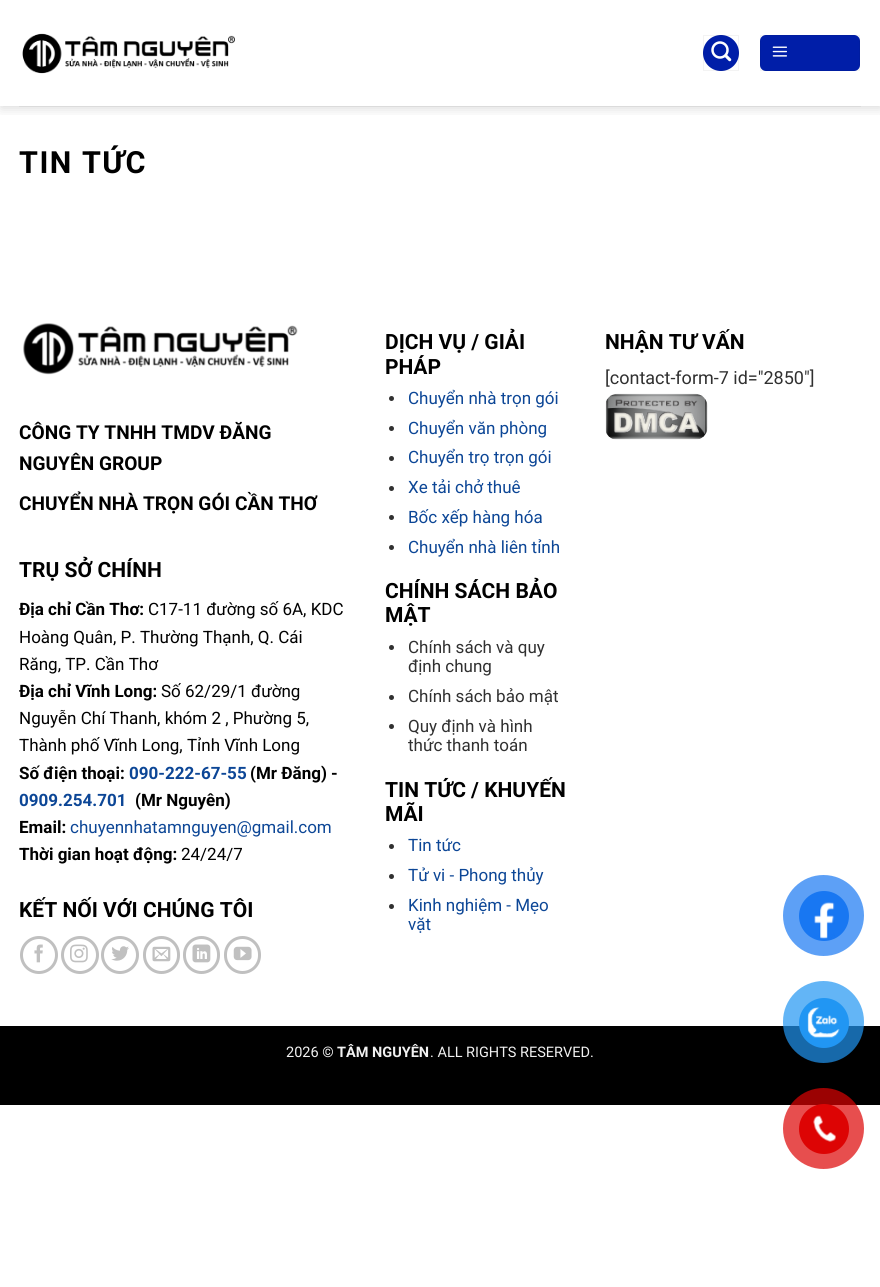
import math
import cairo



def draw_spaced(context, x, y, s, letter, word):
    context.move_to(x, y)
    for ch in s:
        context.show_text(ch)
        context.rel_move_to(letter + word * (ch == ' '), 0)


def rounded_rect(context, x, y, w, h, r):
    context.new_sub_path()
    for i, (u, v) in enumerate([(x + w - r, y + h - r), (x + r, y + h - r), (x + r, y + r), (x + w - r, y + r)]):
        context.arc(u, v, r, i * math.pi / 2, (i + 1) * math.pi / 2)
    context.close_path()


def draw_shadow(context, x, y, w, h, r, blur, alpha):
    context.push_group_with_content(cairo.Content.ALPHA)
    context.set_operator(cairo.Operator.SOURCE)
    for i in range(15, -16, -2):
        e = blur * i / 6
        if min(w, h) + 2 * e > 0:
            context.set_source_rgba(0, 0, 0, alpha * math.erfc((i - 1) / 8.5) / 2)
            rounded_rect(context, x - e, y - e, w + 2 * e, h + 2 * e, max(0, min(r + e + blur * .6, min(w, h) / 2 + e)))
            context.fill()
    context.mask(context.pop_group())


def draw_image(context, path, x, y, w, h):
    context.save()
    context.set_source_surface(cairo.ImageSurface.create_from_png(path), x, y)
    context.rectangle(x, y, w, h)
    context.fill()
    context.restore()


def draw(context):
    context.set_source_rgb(1, 1, 1)
    context.paint()
    context.save()
    context.rectangle(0, 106, 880, 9)
    context.clip()
    context.set_source_rgb(0, 0, 0)
    draw_shadow(context, 1, 1, 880, 107, 0, 6, 0.15)
    context.restore()
    draw_image(context, "images/1.png", 22, 33, 213, 41)
    context.set_source_rgb(0, 30 / 255, 168 / 255)
    context.arc(721, 53, 18, 0, 2 * math.pi)
    context.fill()
    context.rectangle(703.5, 35.5, 35, 35)
    context.set_source_rgba(0, 0, 0, 0.05)
    context.set_line_width(1)
    context.stroke()
    draw_image(context, "images/2.png", 711, 41, 21, 21)
    context.set_source_rgb(0, 30 / 255, 168 / 255)
    rounded_rect(context, 760, 35, 100, 36, 6)
    context.fill()
    context.rectangle(760.5, 35.5, 99, 35)
    context.set_source_rgba(0, 0, 0, 0.05)
    context.stroke()
    draw_image(context, "images/3.png", 772, 46, 15, 11)
    context.set_source_rgb(219 / 255, 219 / 255, 219 / 255)
    context.rectangle(19, 106, 842, 1)
    context.fill()
    context.set_source_rgb(48 / 255, 48 / 255, 48 / 255)
    context.arc(391.5, 398.5, 2.5, 0, 2 * math.pi)
    context.fill()
    context.arc(391.5, 428.5, 2.5, 0, 2 * math.pi)
    context.fill()
    context.arc(391.5, 458.5, 2.5, 0, 2 * math.pi)
    context.fill()
    context.arc(391.5, 488.5, 2.5, 0, 2 * math.pi)
    context.fill()
    context.arc(391.5, 517.5, 2.5, 0, 2 * math.pi)
    context.fill()
    context.arc(391.5, 547.5, 2.5, 0, 2 * math.pi)
    context.fill()
    context.arc(391.5, 647.5, 2.5, 0, 2 * math.pi)
    context.fill()
    context.arc(391.5, 697.5, 2.5, 0, 2 * math.pi)
    context.fill()
    context.arc(391.5, 726.5, 2.5, 0, 2 * math.pi)
    context.fill()
    context.arc(391.5, 846.5, 2.5, 0, 2 * math.pi)
    context.fill()
    context.arc(391.5, 876.5, 2.5, 0, 2 * math.pi)
    context.fill()
    context.arc(391.5, 906.5, 2.5, 0, 2 * math.pi)
    context.fill()
    draw_image(context, "images/4.png", 605, 393, 103, 47)
    draw_image(context, "images/5.png", 23, 323, 275, 52)
    context.arc(39, 955, 17.5, 0, 2 * math.pi)
    context.set_source_rgb(192 / 255, 192 / 255, 192 / 255)
    context.set_line_width(3)
    context.stroke()
    draw_image(context, "images/6.png", 34, 944, 9, 19)
    context.arc(80, 955, 17.5, 0, 2 * math.pi)
    context.stroke()
    draw_image(context, "images/7.png", 70, 944, 18, 19)
    context.arc(120, 955, 17.5, 0, 2 * math.pi)
    context.stroke()
    draw_image(context, "images/8.png", 111, 946, 18, 15)
    rounded_rect(context, 144.5, 937.5, 34, 35, 17)
    context.stroke()
    draw_image(context, "images/9.png", 152, 946, 19, 16)
    rounded_rect(context, 184.5, 937.5, 34, 35, 17)
    context.stroke()
    draw_image(context, "images/10.png", 192, 944, 19, 19)
    rounded_rect(context, 225.5, 937.5, 34, 35, 17)
    context.stroke()
    draw_image(context, "images/11.png", 233, 946, 19, 15)
    context.set_source_rgb(0, 0, 0)
    context.rectangle(0, 1026, 880, 79)
    context.fill()
    context.set_source_rgb(93 / 255, 160 / 255, 246 / 255)
    context.arc(823.5, 915.5, 40.5, 0, 2 * math.pi)
    context.fill()
    context.set_source_rgb(24 / 255, 119 / 255, 242 / 255)
    context.arc(824, 916, 25, 0, 2 * math.pi)
    context.fill()
    draw_image(context, "images/12.png", 814, 902, 21, 37)
    context.set_source_rgba(33 / 255, 150 / 255, 243 / 255, 0.7)
    rounded_rect(context, 783, 981, 81, 82, 40.5)
    context.fill()
    context.set_source_rgb(33 / 255, 150 / 255, 243 / 255)
    context.arc(824, 1023, 25, 0, 2 * math.pi)
    context.fill()
    draw_image(context, "images/13.png", 807, 1007, 33, 31)
    context.set_source_rgba(221 / 255, 4 / 255, 4 / 255, 0.7)
    context.arc(823.5, 1128.5, 40.5, 0, 2 * math.pi)
    context.fill()
    context.set_source_rgb(221 / 255, 4 / 255, 4 / 255)
    context.arc(824, 1129, 25, 0, 2 * math.pi)
    context.fill()
    draw_image(context, "images/14.png", 813, 1115, 23, 27)
    context.select_font_face("Roboto", cairo.FontSlant.NORMAL, cairo.FontWeight.BOLD)
    context.set_font_size(30.5)
    context.set_source_rgb(0, 0, 0)
    draw_spaced(context, 19, 173, "TIN TỨC", 1.5, 0)
    context.set_font_size(21)
    context.move_to(385, 349)
    context.show_text("DỊCH VỤ / GIẢI")
    context.move_to(385, 374)
    context.show_text("PHÁP")
    context.select_font_face("Roboto")
    context.set_font_size(17)
    context.set_source_rgb(12 / 255, 70 / 255, 150 / 255)
    context.move_to(408, 404)
    context.show_text("Chuyển nhà trọn gói")
    context.move_to(408, 434)
    context.show_text("Chuyển văn phòng")
    context.move_to(408, 463)
    context.show_text("Chuyển trọ trọn gói")
    context.move_to(408, 493)
    context.show_text("Xe tải chở thuê")
    context.move_to(408, 523)
    context.show_text("Bốc xếp hàng hóa")
    context.move_to(408, 553)
    context.show_text("Chuyển nhà liên tỉnh")
    context.select_font_face("Roboto", cairo.FontSlant.NORMAL, cairo.FontWeight.BOLD)
    context.set_font_size(21)
    context.set_source_rgb(0, 0, 0)
    context.move_to(385, 598)
    context.show_text("CHÍNH SÁCH BẢO")
    context.move_to(385, 622)
    context.show_text("MẬT")
    context.select_font_face("Roboto")
    context.set_font_size(17)
    context.set_source_rgb(48 / 255, 48 / 255, 48 / 255)
    context.move_to(408, 653)
    context.show_text("Chính sách và quy")
    context.move_to(408, 672)
    context.show_text("định chung")
    context.move_to(408, 702)
    context.show_text("Chính sách bảo mật")
    context.move_to(408, 732)
    context.show_text("Quy định và hình")
    context.move_to(408, 751)
    context.show_text("thức thanh toán")
    context.select_font_face("Roboto", cairo.FontSlant.NORMAL, cairo.FontWeight.BOLD)
    context.set_font_size(21)
    context.set_source_rgb(0, 0, 0)
    context.move_to(385, 797)
    context.show_text("TIN TỨC / KHUYẾN")
    context.move_to(385, 821)
    context.show_text("MÃI")
    context.select_font_face("Roboto")
    context.set_font_size(17)
    context.set_source_rgb(12 / 255, 70 / 255, 150 / 255)
    context.move_to(408, 851)
    context.show_text("Tin tức")
    context.move_to(408, 881)
    context.show_text("Tử vi - Phong thủy")
    context.move_to(408, 911)
    context.show_text("Kinh nghiệm - Mẹo")
    context.move_to(408, 930)
    context.show_text("vặt")
    context.select_font_face("Roboto", cairo.FontSlant.NORMAL, cairo.FontWeight.BOLD)
    context.set_font_size(21)
    context.set_source_rgb(0, 0, 0)
    context.move_to(605, 349)
    context.show_text("NHẬN TƯ VẤN")
    context.select_font_face("Roboto")
    context.set_font_size(18)
    context.set_source_rgb(48 / 255, 48 / 255, 48 / 255)
    context.move_to(605, 384)
    context.show_text("[contact-form-7 id=\"2850\"]")
    context.select_font_face("Roboto", cairo.FontSlant.NORMAL, cairo.FontWeight.BOLD)
    context.set_font_size(19.1)
    context.set_source_rgb(0, 0, 0)
    context.move_to(19, 439)
    context.show_text("CÔNG TY TNHH TMDV ĐĂNG")
    context.move_to(19, 470)
    context.show_text("NGUYÊN GROUP")
    context.move_to(19, 510)
    context.show_text("CHUYỂN NHÀ TRỌN GÓI CẦN THƠ")
    context.set_font_size(21)
    context.move_to(19, 577)
    context.show_text("TRỤ SỞ CHÍNH")
    context.set_font_size(17)
    context.move_to(19, 615)
    context.show_text("Địa chỉ Cần Thơ:")
    context.select_font_face("Roboto")
    context.move_to(148, 615)
    context.show_text("C17-11 đường số 6A, KDC")
    context.move_to(19, 643)
    context.show_text("Hoàng Quân, P. Thường Thạnh, Q. Cái")
    context.move_to(19, 670)
    context.show_text("Răng, TP. Cần Thơ")
    context.select_font_face("Roboto", cairo.FontSlant.NORMAL, cairo.FontWeight.BOLD)
    context.move_to(19, 697)
    context.show_text("Địa chỉ Vĩnh Long:")
    context.select_font_face("Roboto")
    context.move_to(161, 697)
    context.show_text("Số 62/29/1 đường")
    context.move_to(19, 724)
    context.show_text("Nguyễn Chí Thanh, khóm 2 , Phường 5,")
    context.move_to(19, 751)
    context.show_text("Thành phố Vĩnh Long, Tỉnh Vĩnh Long")
    context.select_font_face("Roboto", cairo.FontSlant.NORMAL, cairo.FontWeight.BOLD)
    context.move_to(19, 779)
    context.show_text("Số điện thoại:")
    context.set_source_rgb(12 / 255, 70 / 255, 150 / 255)
    context.move_to(129, 779)
    context.show_text("090-222-67-55")
    context.set_source_rgb(0, 0, 0)
    context.move_to(250, 779)
    context.show_text("(Mr Đăng) -")
    context.set_source_rgb(12 / 255, 70 / 255, 150 / 255)
    context.move_to(19, 806)
    context.show_text("0909.254.701")
    context.set_source_rgb(0, 0, 0)
    context.move_to(135, 806)
    context.show_text("(Mr Nguyên)")
    context.move_to(19, 833)
    context.show_text("Email:")
    context.select_font_face("Roboto")
    context.set_source_rgb(12 / 255, 70 / 255, 150 / 255)
    context.move_to(70, 833)
    context.show_text("chuyennhatamnguyen@gmail.com")
    context.select_font_face("Roboto", cairo.FontSlant.NORMAL, cairo.FontWeight.BOLD)
    context.set_source_rgb(0, 0, 0)
    context.move_to(19, 860)
    context.show_text("Thời gian hoạt động:")
    context.select_font_face("Roboto")
    context.move_to(181, 860)
    context.show_text("24/24/7")
    context.select_font_face("Roboto", cairo.FontSlant.NORMAL, cairo.FontWeight.BOLD)
    context.set_font_size(21)
    context.move_to(19, 917)
    context.show_text("KẾT NỐI VỚI CHÚNG TÔI")
    context.select_font_face("Roboto")
    context.set_font_size(14.5)
    context.set_source_rgb(241 / 255, 241 / 255, 241 / 255)
    context.move_to(286, 1057)
    context.show_text("2026 ©")
    context.select_font_face("Roboto", cairo.FontSlant.NORMAL, cairo.FontWeight.BOLD)
    context.move_to(337, 1057)
    context.show_text("TÂM NGUYÊN")
    context.select_font_face("Roboto")
    context.move_to(430, 1057)
    context.show_text(". ALL RIGHTS RESERVED.")


surface = cairo.ImageSurface(cairo.Format.RGB24, 880, 1287)
context = cairo.Context(surface)
options = cairo.FontOptions()
options.set_hint_metrics(cairo.HintMetrics.OFF)
options.set_hint_style(cairo.HintStyle.NONE)
context.set_font_options(options)
context.set_miter_limit(4)
draw(context)
surface.write_to_png("out.png")
